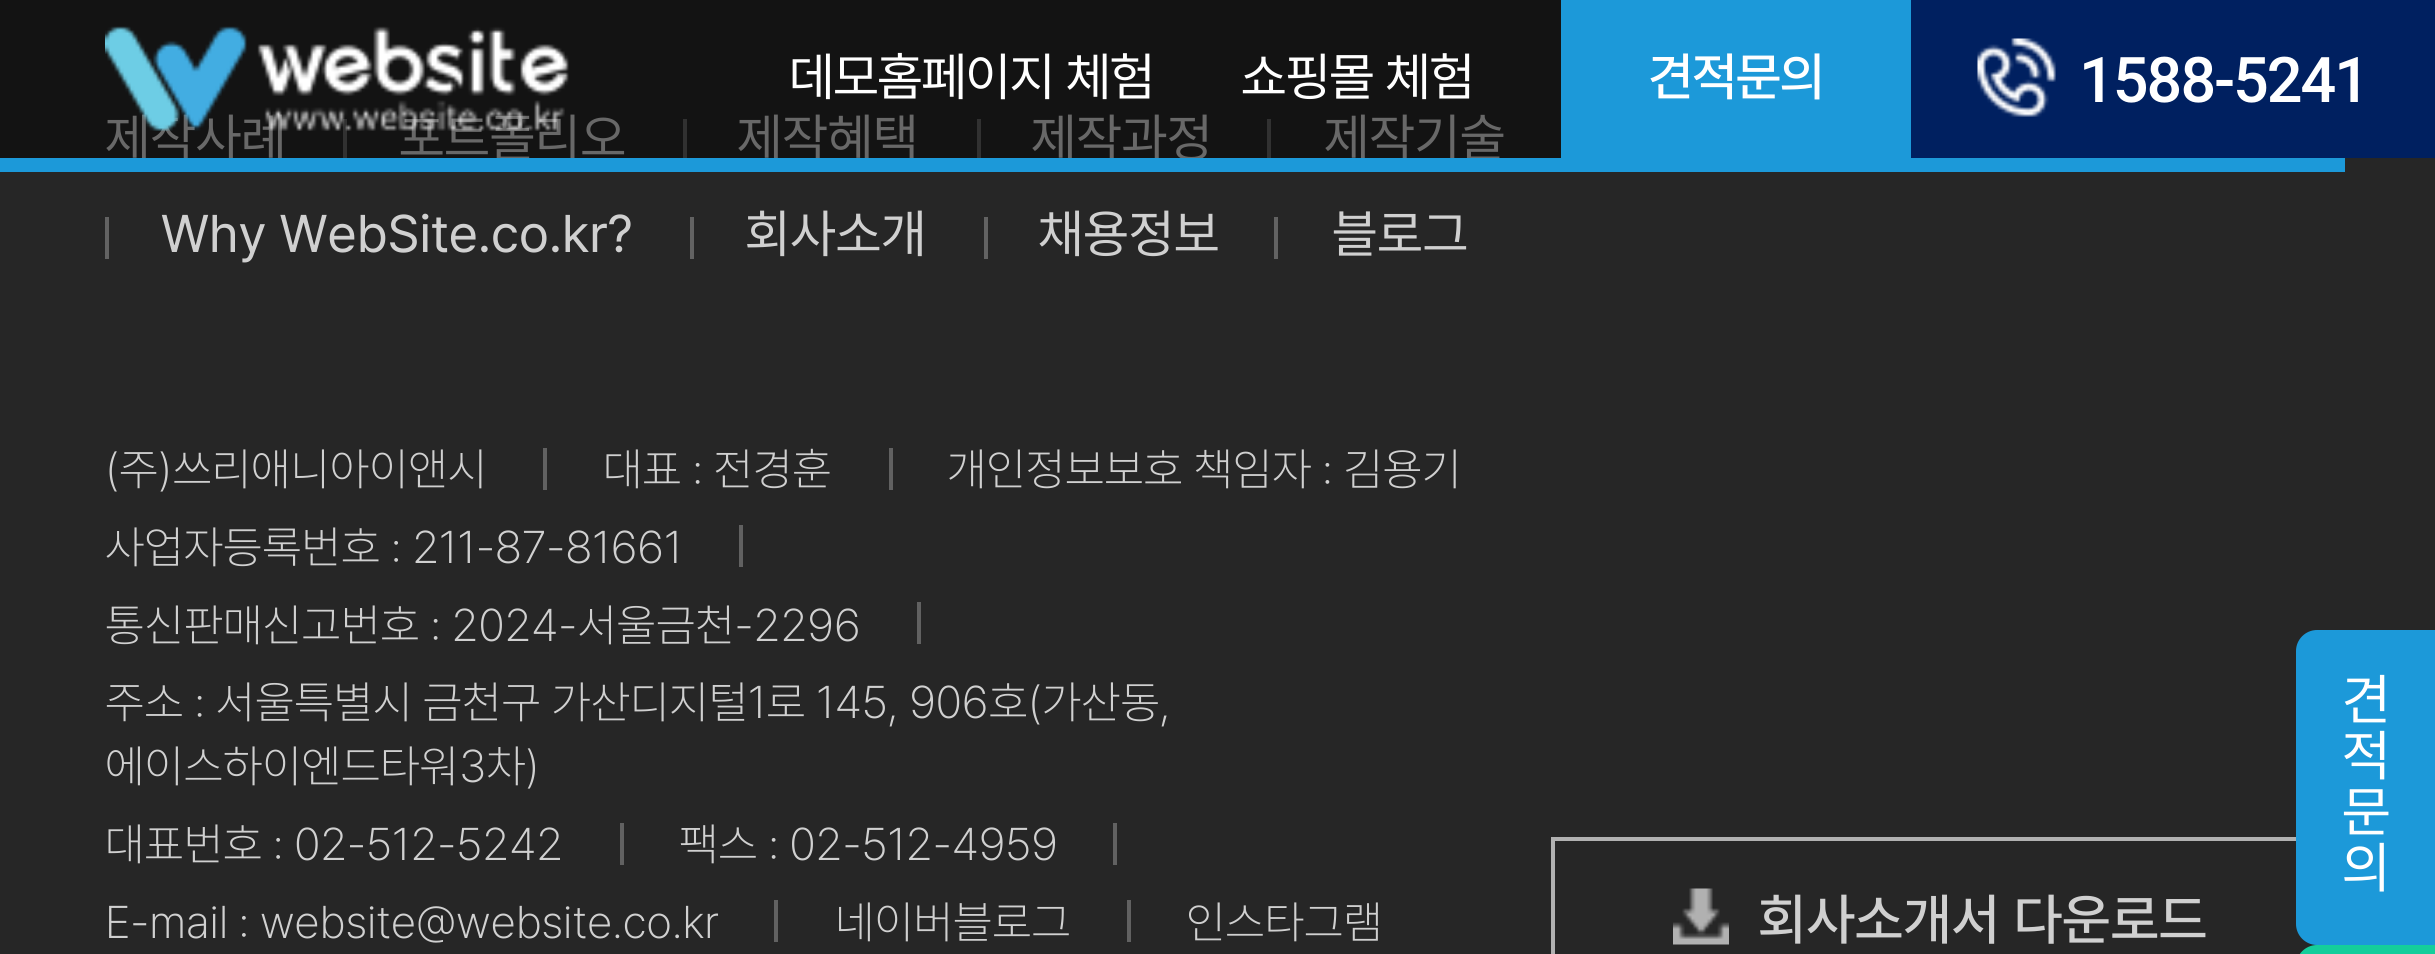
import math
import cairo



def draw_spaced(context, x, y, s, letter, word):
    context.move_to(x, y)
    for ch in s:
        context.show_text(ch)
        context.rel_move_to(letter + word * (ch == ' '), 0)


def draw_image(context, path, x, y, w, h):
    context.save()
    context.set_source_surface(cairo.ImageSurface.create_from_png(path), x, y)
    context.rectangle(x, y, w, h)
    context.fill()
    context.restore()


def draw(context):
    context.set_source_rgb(38 / 255, 38 / 255, 38 / 255)
    context.paint()
    context.set_source_rgb(28 / 255, 153 / 255, 217 / 255)
    context.rectangle(1561, 0, 350, 158)
    context.fill()
    context.set_source_rgb(0, 32 / 255, 96 / 255)
    context.rectangle(1911, 0, 524, 158)
    context.fill()
    draw_image(context, "images/2.png", 1977, 38, 79, 79)
    context.set_source_rgb(98 / 255, 98 / 255, 98 / 255)
    context.rectangle(343, 119, 4, 42)
    context.fill()
    context.rectangle(683, 119, 4, 42)
    context.fill()
    context.rectangle(977, 119, 4, 42)
    context.fill()
    context.rectangle(1267, 119, 4, 42)
    context.fill()
    context.rectangle(105, 217, 4, 42)
    context.fill()
    context.rectangle(690, 217, 4, 42)
    context.fill()
    context.rectangle(984, 217, 4, 42)
    context.fill()
    context.rectangle(1274, 217, 4, 42)
    context.fill()
    context.set_source_rgb(97 / 255, 97 / 255, 97 / 255)
    context.rectangle(543, 448, 4, 42)
    context.fill()
    context.rectangle(889, 448, 4, 42)
    context.fill()
    context.rectangle(739, 525, 4, 42)
    context.fill()
    context.rectangle(917, 602, 4, 42)
    context.fill()
    context.rectangle(620, 823, 4, 42)
    context.fill()
    context.rectangle(1113, 823, 4, 42)
    context.fill()
    context.rectangle(774, 900, 4, 42)
    context.fill()
    context.rectangle(1127, 900, 4, 42)
    context.fill()
    context.rectangle(1553, 839, 776, 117)
    context.set_source_rgb(177 / 255, 177 / 255, 177 / 255)
    context.set_line_width(4)
    context.stroke()
    draw_image(context, "images/3.png", 1673, 888, 56, 57)
    context.set_source_rgb(28 / 255, 153 / 255, 217 / 255)
    context.new_path()
    context.move_to(2317, 630)
    context.line_to(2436, 630)
    context.line_to(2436, 945)
    context.line_to(2317, 945)
    context.curve_to(2305.5, 945, 2296, 935.5, 2296, 924)
    context.line_to(2296, 651)
    context.curve_to(2296, 639.5, 2305.5, 630, 2317, 630)
    context.close_path()
    context.fill()
    context.set_source_rgb(20 / 255, 206 / 255, 155 / 255)
    context.new_path()
    context.move_to(2317, 945)
    context.line_to(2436, 945)
    context.line_to(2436, 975)
    context.line_to(2317, 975)
    context.curve_to(2305.5, 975, 2296, 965.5, 2296, 954)
    context.line_to(2296, 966)
    context.curve_to(2296, 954.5, 2305.5, 945, 2317, 945)
    context.close_path()
    context.fill()
    context.select_font_face("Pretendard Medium")
    context.set_font_size(52.5)
    context.set_source_rgb(1, 1, 1)
    draw_spaced(context, 1648, 95, "견적문의", -1.5, 0)
    context.select_font_face("Roboto Medium")
    context.set_font_size(63)
    draw_spaced(context, 2079, 102, "1588-5241", -2, 0)
    context.select_font_face("Pretendard")
    context.set_font_size(52.5)
    context.set_source_rgb(208 / 255, 208 / 255, 208 / 255)
    context.move_to(105, 156)
    context.show_text("제작사례")
    context.move_to(399, 156)
    context.show_text("포트폴리오")
    context.move_to(737, 156)
    context.show_text("제작혜택")
    context.move_to(1031, 156)
    context.show_text("제작과정")
    context.move_to(1324, 156)
    context.show_text("제작기술")
    context.set_source_rgb(28 / 255, 153 / 255, 217 / 255)
    context.rectangle(0, 158, 2345, 14)
    context.fill()
    context.set_source_rgba(0, 0, 0, 0.5)
    context.rectangle(0, 0, 1561, 158)
    context.fill()
    draw_image(context, "images/1.png", 105, 26, 464, 105)
    context.set_source_rgb(1, 1, 1)
    draw_spaced(context, 1241, 95, "쇼핑몰 체험", -1.25, 0)
    draw_spaced(context, 789, 95, "데모홈페이지 체험", -1.25, 0)
    context.set_source_rgb(208 / 255, 208 / 255, 208 / 255)
    context.move_to(161, 252)
    context.show_text("Why WebSite.co.kr?")
    context.move_to(745, 252)
    context.show_text("회사소개")
    context.move_to(1038, 252)
    context.show_text("채용정보")
    context.move_to(1332, 252)
    context.show_text("블로그")
    context.select_font_face("Pretendard ExtraLight")
    context.set_font_size(45.5)
    context.move_to(105, 485)
    context.show_text("(주)쓰리애니아이앤시")
    context.move_to(603, 485)
    context.show_text("대표 : 전경훈")
    context.move_to(947, 485)
    context.show_text("개인정보보호 책임자 : 김용기")
    context.move_to(105, 563)
    context.show_text("사업자등록번호 : 211-87-81661")
    context.move_to(105, 641)
    context.show_text("통신판매신고번호 : 2024-서울금천-2296")
    context.move_to(105, 718)
    context.show_text("주소 : 서울특별시 금천구 가산디지털1로 145, 906호(가산동,")
    context.move_to(105, 782)
    context.show_text("에이스하이엔드타워3차)")
    context.move_to(105, 860)
    context.show_text("대표번호 : 02-512-5242")
    context.move_to(679, 860)
    context.show_text("팩스 : 02-512-4959")
    context.move_to(105, 938)
    context.show_text("E-mail : website@website.co.kr")
    context.move_to(835, 938)
    context.show_text("네이버블로그")
    context.move_to(1186, 938)
    context.show_text("인스타그램")
    context.select_font_face("Pretendard Medium")
    context.set_font_size(56)
    context.move_to(1758, 939)
    context.show_text("회사소개서 다운로드")
    context.select_font_face("Pretendard")
    context.set_source_rgb(1, 1, 1)
    context.move_to(2342, 719)
    context.show_text("견")
    context.move_to(2342, 775)
    context.show_text("적")
    context.move_to(2342, 831)
    context.show_text("문")
    context.move_to(2342, 887)
    context.show_text("의")


surface = cairo.ImageSurface(cairo.Format.RGB24, 2435, 954)
context = cairo.Context(surface)
options = cairo.FontOptions()
options.set_hint_metrics(cairo.HintMetrics.OFF)
options.set_hint_style(cairo.HintStyle.NONE)
context.set_font_options(options)
context.set_miter_limit(4)
draw(context)
surface.write_to_png("out.png")
